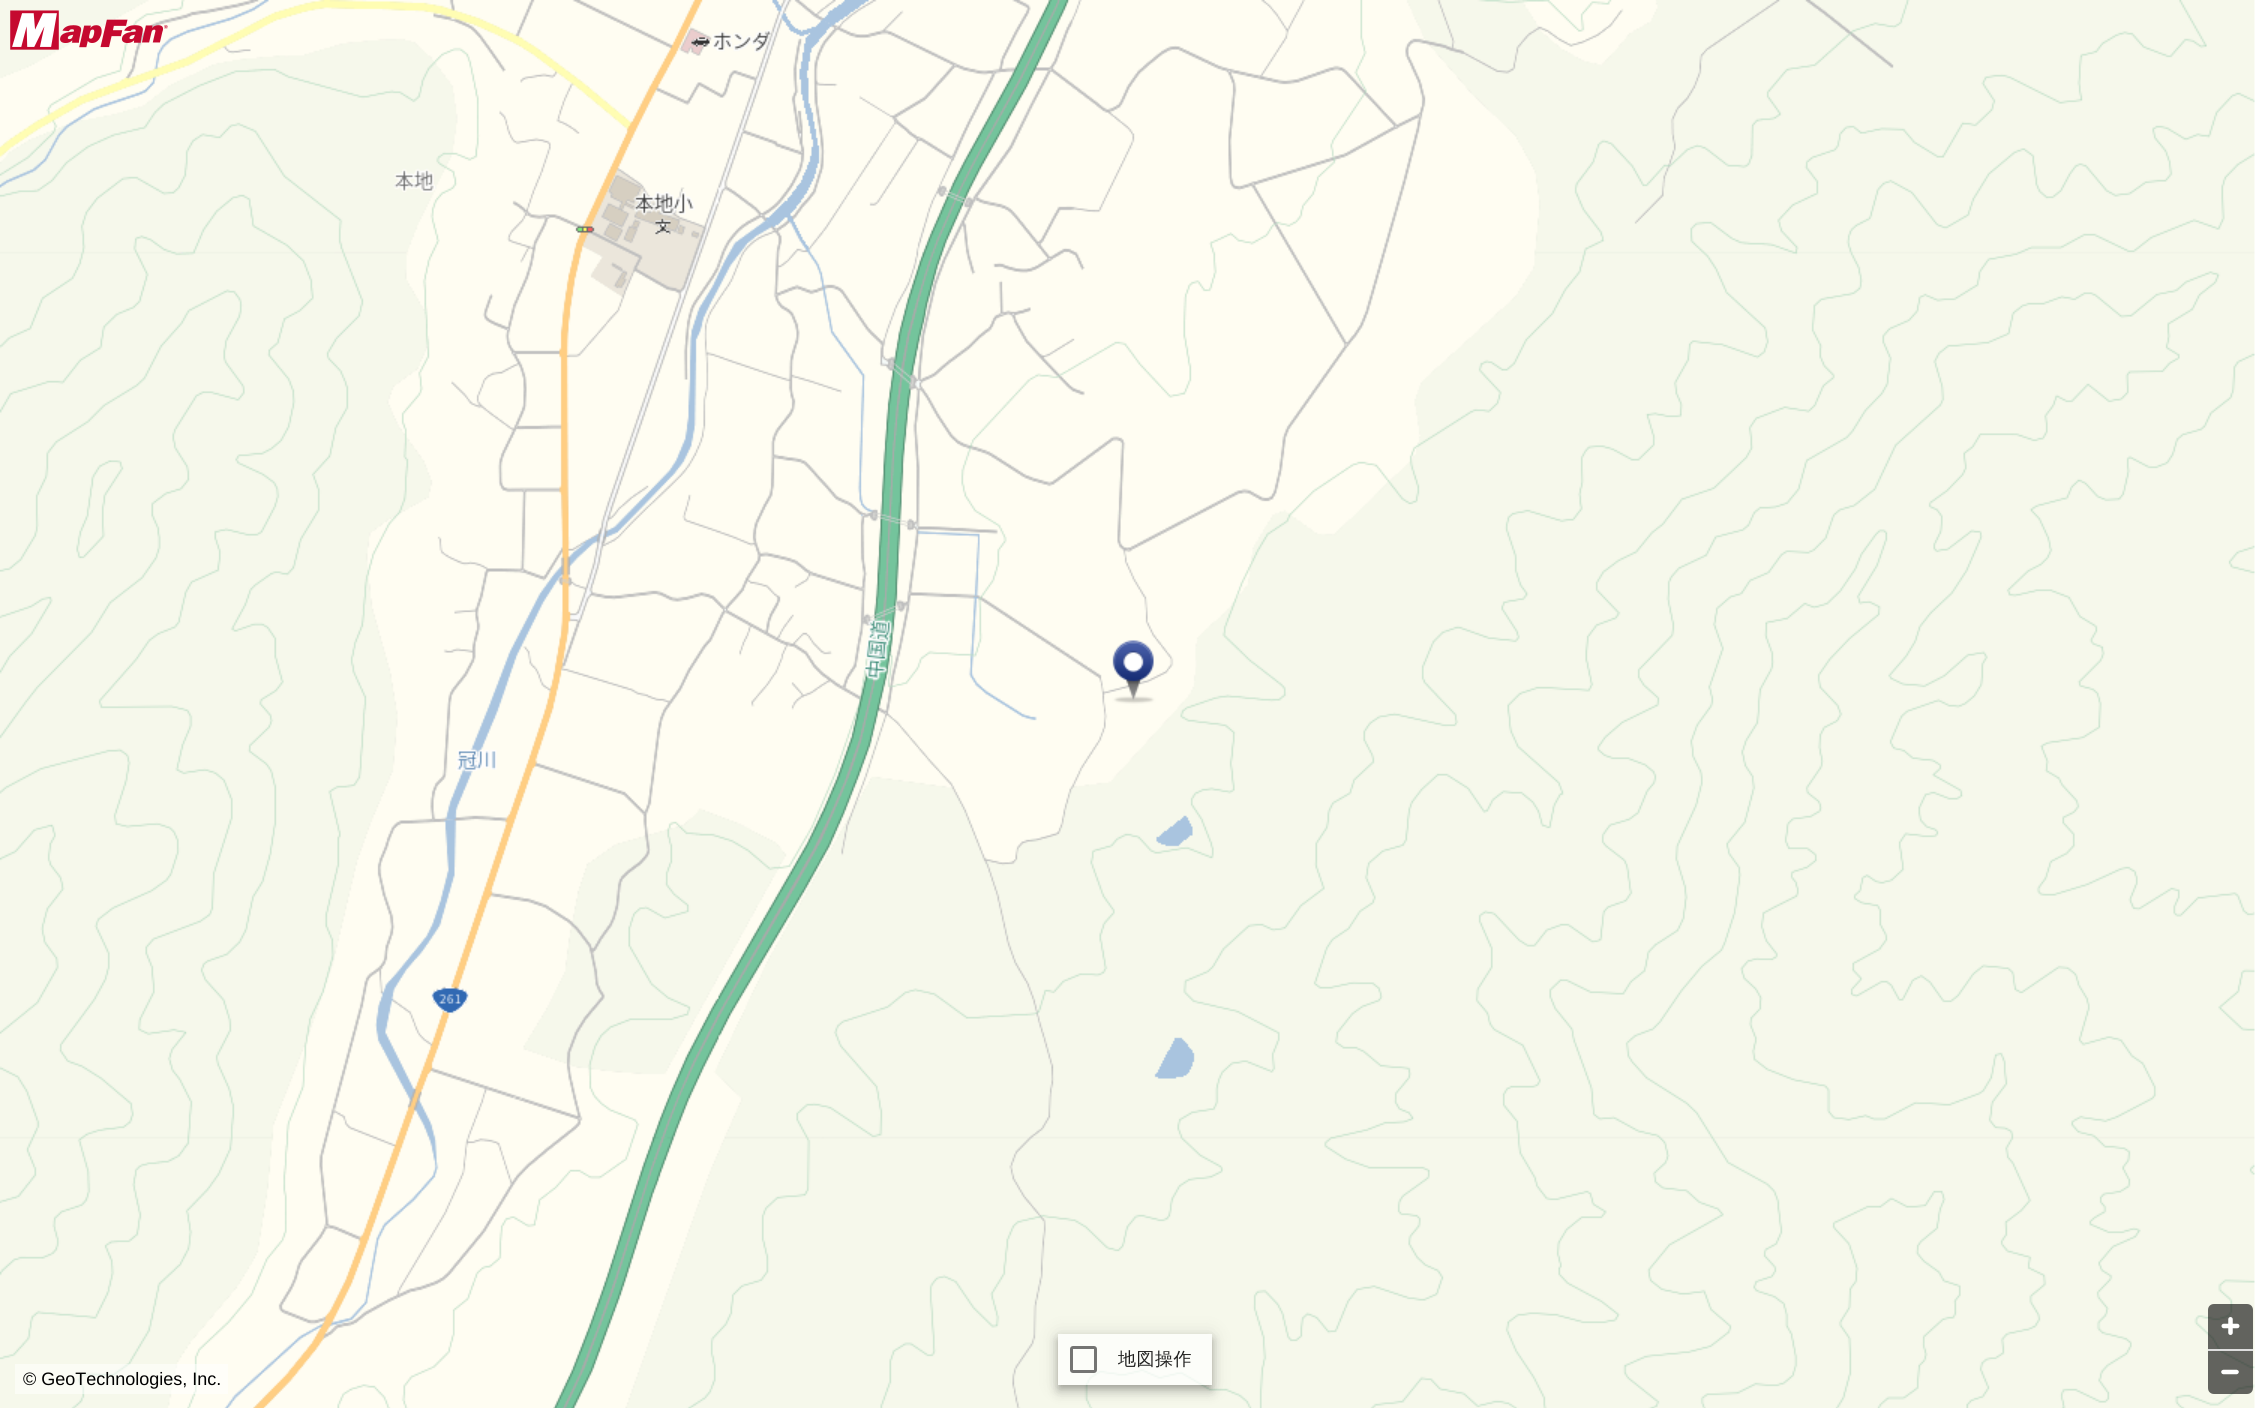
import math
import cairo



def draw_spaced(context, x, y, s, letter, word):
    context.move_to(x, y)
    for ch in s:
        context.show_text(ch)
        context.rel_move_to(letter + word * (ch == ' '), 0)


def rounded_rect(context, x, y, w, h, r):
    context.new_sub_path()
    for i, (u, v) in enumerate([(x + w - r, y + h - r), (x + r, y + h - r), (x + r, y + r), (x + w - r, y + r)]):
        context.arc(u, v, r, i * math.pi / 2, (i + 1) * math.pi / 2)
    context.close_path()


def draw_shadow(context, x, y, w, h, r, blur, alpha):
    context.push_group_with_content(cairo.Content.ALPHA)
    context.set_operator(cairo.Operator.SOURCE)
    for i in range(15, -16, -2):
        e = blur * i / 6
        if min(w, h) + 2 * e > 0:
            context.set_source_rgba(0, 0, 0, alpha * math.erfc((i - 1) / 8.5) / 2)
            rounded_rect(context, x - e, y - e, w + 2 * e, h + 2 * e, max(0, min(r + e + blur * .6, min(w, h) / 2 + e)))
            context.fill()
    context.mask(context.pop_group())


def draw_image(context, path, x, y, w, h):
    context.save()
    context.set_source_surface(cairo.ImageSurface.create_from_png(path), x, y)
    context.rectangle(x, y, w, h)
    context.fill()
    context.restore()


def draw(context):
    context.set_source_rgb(1, 1, 1)
    context.paint()
    draw_image(context, "images/2.png", 0, 0, 2255, 1408)
    draw_image(context, "images/1.png", 10, 10, 158, 40)
    context.save()
    context.set_fill_rule(cairo.FillRule.EVEN_ODD)
    context.new_path()
    context.move_to(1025, 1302)
    context.line_to(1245, 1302)
    context.line_to(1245, 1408)
    context.line_to(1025, 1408)
    context.close_path()
    context.move_to(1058, 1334)
    context.line_to(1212, 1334)
    context.line_to(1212, 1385)
    context.line_to(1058, 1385)
    context.close_path()
    context.clip()
    context.set_source_rgb(0, 0, 0)
    draw_shadow(context, 1058, 1335, 154, 51, 0, 10.5, 0.12)
    context.restore()
    context.save()
    context.set_fill_rule(cairo.FillRule.EVEN_ODD)
    context.new_path()
    context.move_to(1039, 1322)
    context.line_to(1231, 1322)
    context.line_to(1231, 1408)
    context.line_to(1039, 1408)
    context.close_path()
    context.move_to(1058, 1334)
    context.line_to(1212, 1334)
    context.line_to(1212, 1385)
    context.line_to(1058, 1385)
    context.close_path()
    context.clip()
    context.set_source_rgb(0, 0, 0)
    draw_shadow(context, 1058, 1341, 154, 51, 0, 6, 0.14)
    context.restore()
    context.save()
    context.set_fill_rule(cairo.FillRule.EVEN_ODD)
    context.new_path()
    context.move_to(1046, 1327)
    context.line_to(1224, 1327)
    context.line_to(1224, 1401)
    context.line_to(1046, 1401)
    context.close_path()
    context.move_to(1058, 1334)
    context.line_to(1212, 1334)
    context.line_to(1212, 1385)
    context.line_to(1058, 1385)
    context.close_path()
    context.clip()
    context.set_source_rgb(0, 0, 0)
    draw_shadow(context, 1059, 1340, 152, 48, 0, 4, 0.2)
    context.restore()
    context.set_source_rgba(1, 1, 1, 0.7)
    context.rectangle(1058, 1334, 154, 51)
    context.fill()
    rounded_rect(context, 1071.5, 1347.5, 24, 24, 1.5)
    context.set_source_rgb(116 / 255, 116 / 255, 115 / 255)
    context.set_line_width(3)
    context.stroke()
    context.set_source_rgba(1, 1, 1, 0.5)
    context.rectangle(15, 1364, 213, 30)
    context.fill()
    context.set_source_rgba(0, 0, 0, 0.6)
    context.new_path()
    context.move_to(2214, 1304)
    context.line_to(2247, 1304)
    context.curve_to(2250.5, 1304, 2253, 1306.5, 2253, 1310)
    context.line_to(2253, 1349)
    context.line_to(2208, 1349)
    context.line_to(2208, 1310)
    context.curve_to(2208, 1306.5, 2210.5, 1304, 2214, 1304)
    context.close_path()
    context.fill()
    draw_image(context, "images/3.png", 2221, 1317, 19, 18)
    context.new_path()
    context.move_to(2208, 1349)
    context.line_to(2253, 1349)
    context.line_to(2253, 1388)
    context.curve_to(2253, 1391.5, 2250.5, 1394, 2247, 1394)
    context.line_to(2214, 1394)
    context.curve_to(2210.5, 1394, 2208, 1391.5, 2208, 1388)
    context.close_path()
    context.fill()
    draw_image(context, "images/4.png", 2221, 1369, 18, 6)
    context.set_source_rgb(221 / 255, 221 / 255, 221 / 255)
    context.rectangle(2208, 1349, 45, 2)
    context.fill()
    context.select_font_face("WenQuanYi Zen Hei Medium")
    context.set_font_size(18)
    context.set_source_rgb(33 / 255, 33 / 255, 32 / 255)
    draw_spaced(context, 1118, 1365, "地図操作", 0.5, 0)
    context.select_font_face("Liberation Sans")
    context.set_source_rgb(0, 0, 0)
    context.move_to(23, 1385)
    context.show_text("© GeoTechnologies, Inc.")


surface = cairo.ImageSurface(cairo.Format.RGB24, 2268, 1408)
context = cairo.Context(surface)
options = cairo.FontOptions()
options.set_hint_metrics(cairo.HintMetrics.OFF)
options.set_hint_style(cairo.HintStyle.NONE)
context.set_font_options(options)
context.set_miter_limit(4)
draw(context)
surface.write_to_png("out.png")
